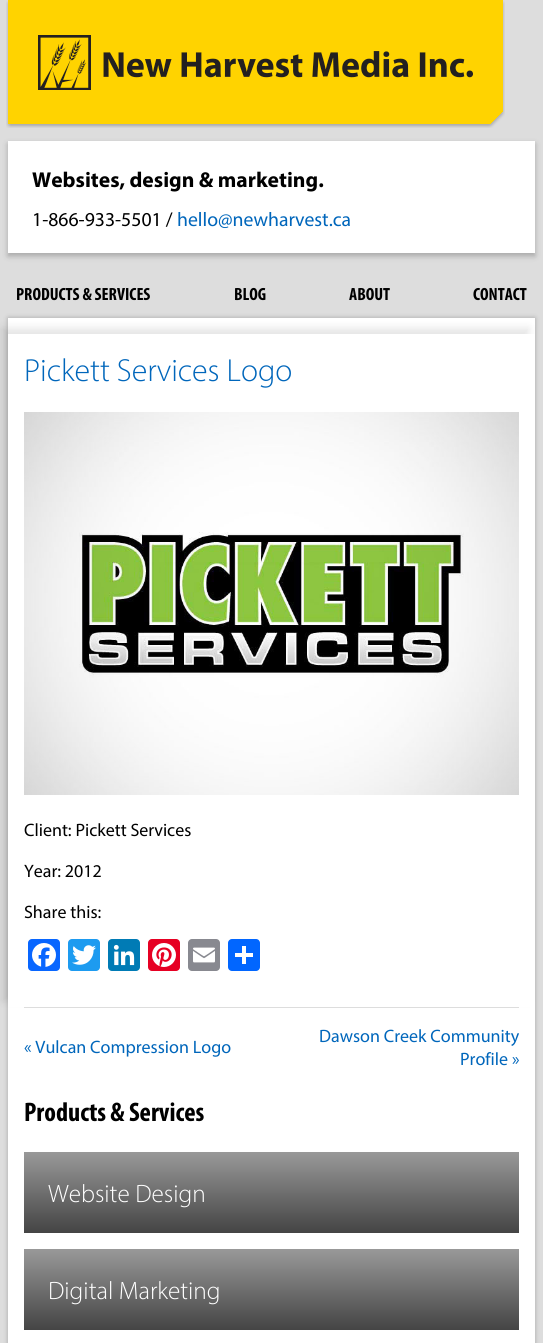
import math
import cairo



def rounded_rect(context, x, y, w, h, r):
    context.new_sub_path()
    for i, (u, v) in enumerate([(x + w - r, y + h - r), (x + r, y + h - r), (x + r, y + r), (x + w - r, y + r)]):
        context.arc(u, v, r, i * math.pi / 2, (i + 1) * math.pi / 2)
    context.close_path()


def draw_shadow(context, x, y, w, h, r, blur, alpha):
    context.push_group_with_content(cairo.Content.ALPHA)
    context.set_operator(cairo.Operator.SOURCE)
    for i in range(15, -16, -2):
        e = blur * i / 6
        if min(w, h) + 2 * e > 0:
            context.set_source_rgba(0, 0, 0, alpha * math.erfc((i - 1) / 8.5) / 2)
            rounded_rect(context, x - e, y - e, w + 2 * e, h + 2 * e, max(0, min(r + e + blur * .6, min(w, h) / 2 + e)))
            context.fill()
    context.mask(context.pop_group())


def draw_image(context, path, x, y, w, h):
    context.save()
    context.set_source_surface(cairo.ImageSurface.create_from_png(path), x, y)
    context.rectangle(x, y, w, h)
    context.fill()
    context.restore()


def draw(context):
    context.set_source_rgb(221 / 255, 221 / 255, 221 / 255)
    context.paint()
    draw_image(context, "images/1.png", 6, 0, 499, 128)
    context.set_source_rgb(0, 0, 0)
    draw_shadow(context, 8, 144, 527, 112, 0, 3, 0.25)
    context.set_source_rgb(1, 1, 1)
    context.rectangle(8, 141, 527, 112)
    context.fill()
    context.set_source_rgb(0, 0, 0)
    draw_shadow(context, 8, 318, 527, 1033, 0, 2.5, 0.25)
    context.set_source_rgb(1, 1, 1)
    context.rectangle(8, 318, 527, 1025)
    context.fill()
    context.save()
    context.set_fill_rule(cairo.FillRule.EVEN_ODD)
    context.new_path()
    context.move_to(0, 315)
    context.line_to(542, 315)
    context.line_to(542, 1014)
    context.line_to(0, 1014)
    context.close_path()
    context.move_to(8, 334)
    context.line_to(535, 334)
    context.line_to(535, 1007)
    context.line_to(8, 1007)
    context.close_path()
    context.clip()
    context.set_source_rgb(0, 0, 0)
    draw_shadow(context, 2, 328, 527, 673, 0, 4, 0.1)
    context.restore()
    draw_image(context, "images/2.png", 24, 412, 495, 383)
    context.set_source_rgb(8 / 255, 102 / 255, 1)
    rounded_rect(context, 28, 939, 32, 32, 4)
    context.fill()
    draw_image(context, "images/3.png", 32, 943, 24, 24)
    context.set_source_rgb(29 / 255, 155 / 255, 240 / 255)
    rounded_rect(context, 68, 939, 32, 32, 4)
    context.fill()
    draw_image(context, "images/4.png", 72, 945, 24, 20)
    context.set_source_rgb(0, 123 / 255, 181 / 255)
    rounded_rect(context, 108, 939, 32, 32, 4)
    context.fill()
    draw_image(context, "images/5.png", 113, 944, 22, 22)
    context.set_source_rgb(230 / 255, 0, 35 / 255)
    rounded_rect(context, 148, 939, 32, 32, 4)
    context.fill()
    draw_image(context, "images/6.png", 152, 943, 24, 24)
    context.set_source_rgb(136 / 255, 137 / 255, 144 / 255)
    rounded_rect(context, 188, 939, 32, 32, 4)
    context.fill()
    draw_image(context, "images/7.png", 193, 947, 22, 16)
    context.set_source_rgb(1 / 255, 102 / 255, 1)
    rounded_rect(context, 228, 939, 32, 32, 4)
    context.fill()
    context.set_source_rgb(1, 1, 1)
    context.rectangle(242, 946, 4, 18)
    context.fill()
    context.rectangle(235, 953, 18, 4)
    context.fill()
    context.set_source_rgb(221 / 255, 221 / 255, 221 / 255)
    context.rectangle(24, 1007, 495, 1)
    context.fill()
    gradient = cairo.LinearGradient(272, 1152, 272, 1233)
    gradient.add_color_stop_rgba(0, 153 / 255, 153 / 255, 153 / 255, 1)
    gradient.add_color_stop_rgba(1, 68 / 255, 68 / 255, 68 / 255, 1)
    context.set_source(gradient)
    context.rectangle(24, 1152, 495, 81)
    context.fill()
    gradient = cairo.LinearGradient(272, 1249, 272, 1330)
    gradient.add_color_stop_rgba(0, 153 / 255, 153 / 255, 153 / 255, 1)
    gradient.add_color_stop_rgba(1, 68 / 255, 68 / 255, 68 / 255, 1)
    context.set_source(gradient)
    context.rectangle(24, 1249, 495, 81)
    context.fill()
    context.select_font_face("Myriad", cairo.FontSlant.NORMAL, cairo.FontWeight.BOLD)
    context.set_font_size(21.6)
    context.set_source_rgb(0, 0, 0)
    context.move_to(32, 187)
    context.show_text("Websites, design & marketing.")
    context.select_font_face("Myriad")
    context.set_font_size(19.75)
    context.move_to(32, 226)
    context.show_text("1-866-933-5501 /")
    context.set_source_rgb(0, 102 / 255, 187 / 255)
    context.move_to(177, 226)
    context.show_text("hello@newharvest.ca")
    context.select_font_face("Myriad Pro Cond", cairo.FontSlant.NORMAL, cairo.FontWeight.BOLD)
    context.set_font_size(17.75)
    context.set_source_rgb(0, 0, 0)
    context.move_to(16, 300)
    context.show_text("PRODUCTS & SERVICES")
    context.move_to(234, 300)
    context.show_text("BLOG")
    context.move_to(349, 300)
    context.show_text("ABOUT")
    context.move_to(473, 300)
    context.show_text("CONTACT")
    context.select_font_face("Myriad Light")
    context.set_font_size(32)
    context.set_source_rgb(0, 102 / 255, 187 / 255)
    context.move_to(24, 381)
    context.show_text("Pickett Services Logo")
    context.select_font_face("Myriad")
    context.set_font_size(18)
    context.set_source_rgb(0, 0, 0)
    context.move_to(24, 836)
    context.show_text("Client: Pickett Services")
    context.move_to(24, 877)
    context.show_text("Year: 2012")
    context.move_to(24, 918)
    context.show_text("Share this:")
    context.set_source_rgb(0, 102 / 255, 187 / 255)
    context.move_to(24, 1053)
    context.show_text("« Vulcan Compression Logo")
    context.move_to(319, 1042)
    context.show_text("Dawson Creek Community")
    context.move_to(460, 1065)
    context.show_text("Profile »")
    context.select_font_face("Myriad Pro Cond", cairo.FontSlant.NORMAL, cairo.FontWeight.BOLD)
    context.set_font_size(27)
    context.set_source_rgb(0, 0, 0)
    context.move_to(24, 1121)
    context.show_text("Products & Services")
    context.select_font_face("Myriad Light")
    context.set_font_size(25.25)
    context.set_source_rgb(1, 1, 1)
    context.move_to(48, 1202)
    context.show_text("Website Design")
    context.move_to(48, 1299)
    context.show_text("Digital Marketing")


surface = cairo.ImageSurface(cairo.Format.RGB24, 543, 1343)
context = cairo.Context(surface)
options = cairo.FontOptions()
options.set_hint_metrics(cairo.HintMetrics.OFF)
options.set_hint_style(cairo.HintStyle.NONE)
context.set_font_options(options)
context.set_miter_limit(4)
draw(context)
surface.write_to_png("out.png")
